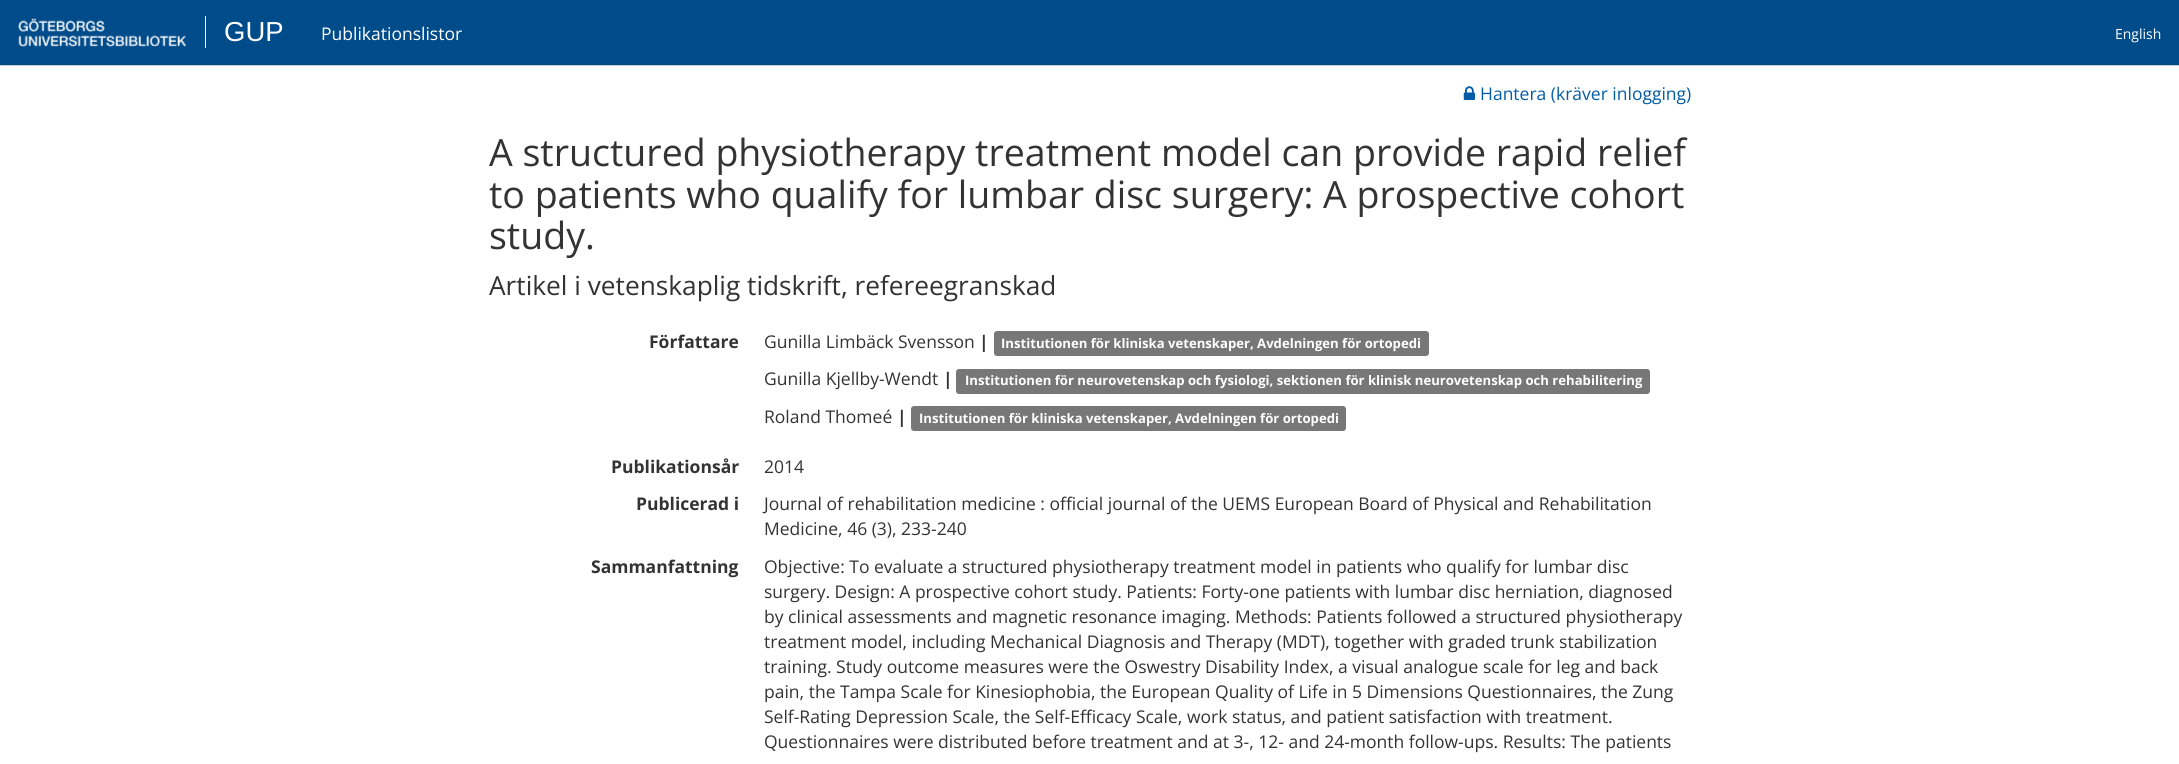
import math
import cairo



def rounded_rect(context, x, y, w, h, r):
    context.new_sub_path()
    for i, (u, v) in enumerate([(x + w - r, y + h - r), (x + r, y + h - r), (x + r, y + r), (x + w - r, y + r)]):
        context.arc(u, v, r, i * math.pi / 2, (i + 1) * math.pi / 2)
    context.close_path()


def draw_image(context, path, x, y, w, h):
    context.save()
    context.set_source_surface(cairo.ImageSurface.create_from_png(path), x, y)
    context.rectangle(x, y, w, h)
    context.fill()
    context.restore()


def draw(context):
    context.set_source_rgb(1, 1, 1)
    context.paint()
    context.set_source_rgb(0, 75 / 255, 137 / 255)
    context.rectangle(0, 0, 2179, 65)
    context.fill()
    context.set_source_rgb(204 / 255, 204 / 255, 204 / 255)
    context.rectangle(0, 65, 2179, 1)
    context.fill()
    draw_image(context, "images/1.png", 18, 18, 168, 29)
    context.set_source_rgb(1, 1, 1)
    context.rectangle(205, 16, 1, 32)
    context.fill()
    draw_image(context, "images/2.png", 1463, 86, 12, 14)
    context.set_source_rgb(119 / 255, 119 / 255, 119 / 255)
    rounded_rect(context, 994, 331, 435, 25, 3)
    context.fill()
    rounded_rect(context, 956, 369, 694, 25, 3)
    context.fill()
    rounded_rect(context, 911, 406, 435, 25, 3)
    context.fill()
    context.select_font_face("Liberation Sans")
    context.set_font_size(27.5)
    context.set_source_rgb(1, 1, 1)
    context.move_to(224, 41)
    context.show_text("GUP")
    context.select_font_face("Open Sans")
    context.set_font_size(17.5)
    context.move_to(321, 40)
    context.show_text("Publikationslistor")
    context.set_font_size(14)
    context.move_to(2115, 39)
    context.show_text("English")
    context.set_font_size(17.5)
    context.set_source_rgb(2 / 255, 93 / 255, 166 / 255)
    context.move_to(1480, 100)
    context.show_text("Hantera (kräver inlogging)")
    context.set_font_size(37.5)
    context.set_source_rgb(51 / 255, 51 / 255, 51 / 255)
    context.move_to(489, 166)
    context.show_text("A structured physiotherapy treatment model can provide rapid relief")
    context.move_to(489, 208)
    context.show_text("to patients who qualify for lumbar disc surgery: A prospective cohort")
    context.move_to(489, 249)
    context.show_text("study.")
    context.set_font_size(26.25)
    context.move_to(489, 295)
    context.show_text("Artikel i vetenskaplig tidskrift, refereegranskad")
    context.select_font_face("Open Sans", cairo.FontSlant.NORMAL, cairo.FontWeight.BOLD)
    context.set_font_size(17.5)
    context.move_to(649, 348)
    context.show_text("Författare")
    context.select_font_face("Open Sans")
    context.move_to(764, 348)
    context.show_text("Gunilla Limbäck Svensson")
    context.select_font_face("Open Sans", cairo.FontSlant.NORMAL, cairo.FontWeight.BOLD)
    context.move_to(979, 348)
    context.show_text("|")
    context.set_font_size(13.12)
    context.set_source_rgb(1, 1, 1)
    context.move_to(1001, 348)
    context.show_text("Institutionen för kliniska vetenskaper, Avdelningen för ortopedi")
    context.select_font_face("Open Sans")
    context.set_font_size(17.5)
    context.set_source_rgb(51 / 255, 51 / 255, 51 / 255)
    context.move_to(764, 385)
    context.show_text("Gunilla Kjellby-Wendt")
    context.select_font_face("Open Sans", cairo.FontSlant.NORMAL, cairo.FontWeight.BOLD)
    context.move_to(943, 385)
    context.show_text("|")
    context.set_font_size(13.12)
    context.set_source_rgb(1, 1, 1)
    context.move_to(965, 385)
    context.show_text("Institutionen för neurovetenskap och fysiologi, sektionen för klinisk neurovetenskap och rehabilitering")
    context.select_font_face("Open Sans")
    context.set_font_size(17.5)
    context.set_source_rgb(51 / 255, 51 / 255, 51 / 255)
    context.move_to(764, 423)
    context.show_text("Roland Thomeé")
    context.select_font_face("Open Sans", cairo.FontSlant.NORMAL, cairo.FontWeight.BOLD)
    context.move_to(897, 423)
    context.show_text("|")
    context.set_font_size(13.12)
    context.set_source_rgb(1, 1, 1)
    context.move_to(919, 423)
    context.show_text("Institutionen för kliniska vetenskaper, Avdelningen för ortopedi")
    context.set_font_size(17.5)
    context.set_source_rgb(51 / 255, 51 / 255, 51 / 255)
    context.move_to(611, 473)
    context.show_text("Publikationsår")
    context.select_font_face("Open Sans")
    context.move_to(764, 473)
    context.show_text("2014")
    context.select_font_face("Open Sans", cairo.FontSlant.NORMAL, cairo.FontWeight.BOLD)
    context.move_to(636, 510)
    context.show_text("Publicerad i")
    context.select_font_face("Open Sans")
    context.move_to(764, 510)
    context.show_text("Journal of rehabilitation medicine : official journal of the UEMS European Board of Physical and Rehabilitation")
    context.move_to(764, 535)
    context.show_text("Medicine, 46 (3), 233-240")
    context.select_font_face("Open Sans", cairo.FontSlant.NORMAL, cairo.FontWeight.BOLD)
    context.move_to(591, 573)
    context.show_text("Sammanfattning")
    context.select_font_face("Open Sans")
    context.move_to(764, 573)
    context.show_text("Objective: To evaluate a structured physiotherapy treatment model in patients who qualify for lumbar disc")
    context.move_to(764, 598)
    context.show_text("surgery. Design: A prospective cohort study. Patients: Forty-one patients with lumbar disc herniation, diagnosed")
    context.move_to(764, 623)
    context.show_text("by clinical assessments and magnetic resonance imaging. Methods: Patients followed a structured physiotherapy")
    context.move_to(764, 648)
    context.show_text("treatment model, including Mechanical Diagnosis and Therapy (MDT), together with graded trunk stabilization")
    context.move_to(764, 673)
    context.show_text("training. Study outcome measures were the Oswestry Disability Index, a visual analogue scale for leg and back")
    context.move_to(764, 698)
    context.show_text("pain, the Tampa Scale for Kinesiophobia, the European Quality of Life in 5 Dimensions Questionnaires, the Zung")
    context.move_to(764, 723)
    context.show_text("Self-Rating Depression Scale, the Self-Efficacy Scale, work status, and patient satisfaction with treatment.")
    context.move_to(764, 748)
    context.show_text("Questionnaires were distributed before treatment and at 3-, 12- and 24-month follow-ups. Results: The patients")


surface = cairo.ImageSurface(cairo.Format.RGB24, 2179, 764)
context = cairo.Context(surface)
options = cairo.FontOptions()
options.set_hint_metrics(cairo.HintMetrics.OFF)
options.set_hint_style(cairo.HintStyle.NONE)
context.set_font_options(options)
context.set_miter_limit(4)
draw(context)
surface.write_to_png("out.png")
